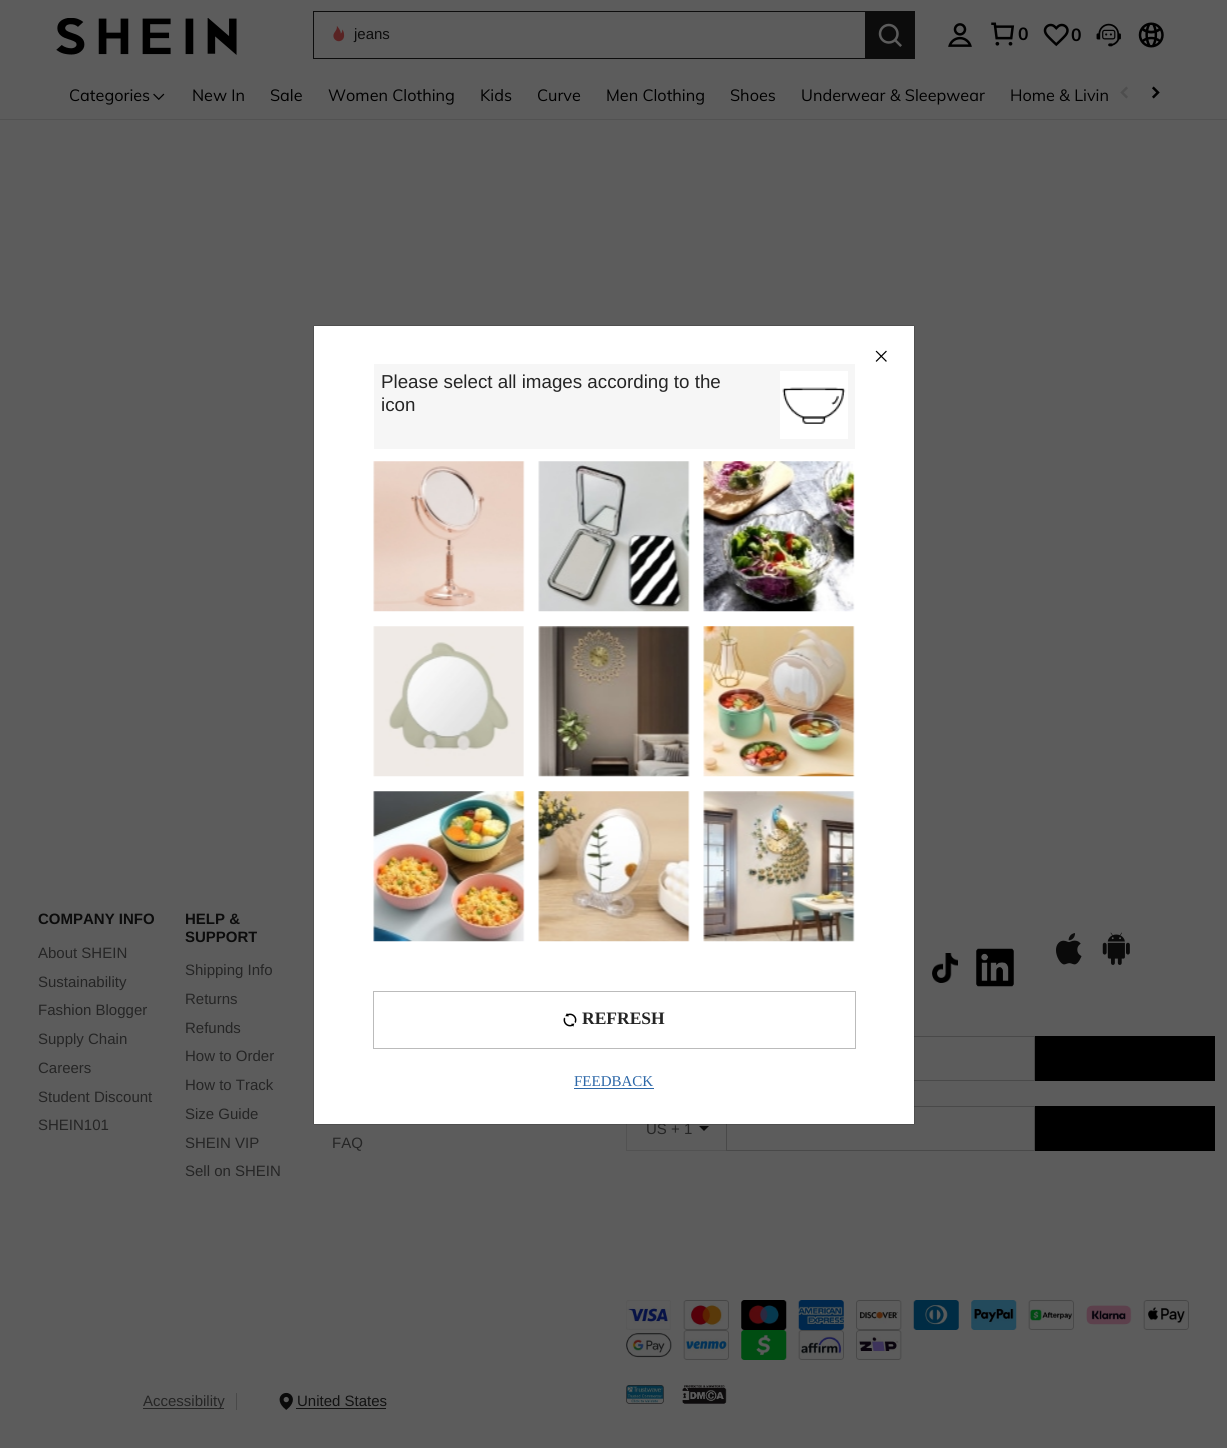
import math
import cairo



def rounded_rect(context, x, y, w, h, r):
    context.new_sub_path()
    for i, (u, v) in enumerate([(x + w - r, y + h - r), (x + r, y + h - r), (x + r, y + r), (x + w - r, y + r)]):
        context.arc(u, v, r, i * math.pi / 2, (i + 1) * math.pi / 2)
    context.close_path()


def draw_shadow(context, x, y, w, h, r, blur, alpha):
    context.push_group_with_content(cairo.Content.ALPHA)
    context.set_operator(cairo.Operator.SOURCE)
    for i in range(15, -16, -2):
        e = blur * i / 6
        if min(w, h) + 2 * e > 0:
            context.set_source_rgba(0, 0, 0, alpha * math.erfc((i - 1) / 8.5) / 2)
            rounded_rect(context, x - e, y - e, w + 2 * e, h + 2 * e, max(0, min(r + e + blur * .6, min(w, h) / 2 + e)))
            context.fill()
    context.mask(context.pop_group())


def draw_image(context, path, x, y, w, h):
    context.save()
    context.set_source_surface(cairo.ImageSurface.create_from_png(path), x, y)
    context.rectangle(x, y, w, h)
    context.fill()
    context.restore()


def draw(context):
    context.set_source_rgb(92 / 255, 92 / 255, 92 / 255)
    context.paint()
    draw_image(context, "images/1.png", 56, 18, 181, 37)
    context.set_source_rgb(12 / 255, 12 / 255, 12 / 255)
    context.rectangle(313, 11, 552, 1)
    context.fill()
    context.rectangle(313, 58, 552, 1)
    context.fill()
    context.rectangle(313, 11, 1, 48)
    context.fill()
    draw_image(context, "images/2.png", 333, 26, 12, 16)
    context.rectangle(865, 11, 50, 48)
    context.fill()
    draw_image(context, "images/3.png", 878, 23, 24, 24)
    draw_image(context, "images/4.png", 948, 23, 24, 24)
    draw_image(context, "images/5.png", 991, 22, 24, 24)
    draw_image(context, "images/6.png", 1043, 23, 26, 24)
    draw_image(context, "images/7.png", 1096, 23, 25, 24)
    draw_image(context, "images/8.png", 1138, 22, 26, 26)
    context.set_source_rgb(82 / 255, 82 / 255, 82 / 255)
    context.rectangle(0, 119, 1227, 1)
    context.fill()
    draw_image(context, "images/9.png", 153, 93, 12, 7)
    draw_image(context, "images/10.png", 1120, 86, 8, 13)
    draw_image(context, "images/11.png", 1152, 86, 8, 13)
    draw_image(context, "images/12.png", 932, 953, 26, 30)
    draw_image(context, "images/13.png", 976, 948, 38, 39)
    draw_image(context, "images/14.png", 1056, 933, 26, 32)
    draw_image(context, "images/15.png", 1102, 932, 28, 33)
    context.rectangle(626.5, 1036.5, 408, 44)
    context.set_source_rgb(73 / 255, 73 / 255, 73 / 255)
    context.set_line_width(1)
    context.stroke()
    context.set_source_rgb(0, 0, 0)
    context.rectangle(1035, 1036, 180, 45)
    context.fill()
    context.set_source_rgb(82 / 255, 82 / 255, 82 / 255)
    context.rectangle(626, 1150, 100, 1)
    context.fill()
    context.rectangle(626, 1124, 1, 27)
    context.fill()
    context.set_source_rgb(12 / 255, 12 / 255, 12 / 255)
    context.new_path()
    context.move_to(699, 1126)
    context.line_to(709, 1126)
    context.line_to(704, 1131)
    context.close_path()
    context.fill()
    context.rectangle(726.5, 1106.5, 308, 44)
    context.set_source_rgb(73 / 255, 73 / 255, 73 / 255)
    context.stroke()
    context.set_source_rgb(0, 0, 0)
    context.rectangle(1035, 1106, 180, 45)
    context.fill()
    draw_image(context, "images/16.png", 626, 1300, 45, 30)
    draw_image(context, "images/17.png", 683, 1300, 46, 30)
    draw_image(context, "images/18.png", 741, 1300, 46, 30)
    draw_image(context, "images/19.png", 798, 1300, 46, 30)
    draw_image(context, "images/20.png", 856, 1300, 46, 30)
    draw_image(context, "images/21.png", 913, 1300, 46, 30)
    draw_image(context, "images/22.png", 971, 1300, 46, 30)
    draw_image(context, "images/23.png", 1028, 1300, 46, 30)
    draw_image(context, "images/24.png", 1086, 1305, 46, 20)
    draw_image(context, "images/25.png", 1143, 1300, 46, 30)
    draw_image(context, "images/26.png", 626, 1333, 46, 25)
    draw_image(context, "images/27.png", 683, 1330, 46, 30)
    draw_image(context, "images/28.png", 741, 1330, 46, 30)
    draw_image(context, "images/29.png", 798, 1330, 46, 30)
    draw_image(context, "images/30.png", 856, 1330, 46, 30)
    context.set_source_rgb(73 / 255, 73 / 255, 73 / 255)
    context.rectangle(236, 1393, 1, 17)
    context.fill()
    context.set_source_rgb(37 / 255, 37 / 255, 37 / 255)
    context.rectangle(143, 1408, 81, 1)
    context.fill()
    draw_image(context, "images/31.png", 279, 1392, 14, 18)
    context.set_source_rgb(18 / 255, 18 / 255, 18 / 255)
    context.rectangle(296, 1408, 90, 1)
    context.fill()
    draw_image(context, "images/32.png", 626, 1385, 38, 19)
    draw_image(context, "images/33.png", 682, 1385, 45, 19)
    context.set_source_rgb(0, 0, 0)
    draw_shadow(context, 314, 326, 600, 798, 0, 0.5, 0.3)
    draw_shadow(context, 314, 326, 600, 798, 0, 0.5, 0.3)
    context.select_font_face("Liberation Sans")
    context.set_font_size(15)
    context.set_source_rgb(12 / 255, 12 / 255, 12 / 255)
    context.move_to(354, 39)
    context.show_text("jeans")
    context.select_font_face("Muli", cairo.FontSlant.NORMAL, cairo.FontWeight.BOLD)
    context.set_font_size(17.5)
    context.set_source_rgb(0, 0, 0)
    context.move_to(1018, 40)
    context.show_text("0")
    context.move_to(1071, 41)
    context.show_text("0")
    context.select_font_face("Muli")
    context.set_font_size(16.25)
    context.move_to(69, 101)
    context.show_text("Categories")
    context.move_to(192, 101)
    context.show_text("New In")
    context.move_to(270, 101)
    context.show_text("Sale")
    context.move_to(328, 101)
    context.show_text("Women Clothing")
    context.move_to(480, 101)
    context.show_text("Kids")
    context.move_to(537, 101)
    context.show_text("Curve")
    context.move_to(606, 101)
    context.show_text("Men Clothing")
    context.move_to(730, 101)
    context.show_text("Shoes")
    context.move_to(801, 101)
    context.show_text("Underwear & Sleepwear")
    context.move_to(1010, 101)
    context.show_text("Home & Livin")
    context.select_font_face("Liberation Sans", cairo.FontSlant.NORMAL, cairo.FontWeight.BOLD)
    context.set_font_size(15)
    context.set_source_rgb(12 / 255, 12 / 255, 12 / 255)
    context.move_to(38, 924)
    context.show_text("COMPANY INFO")
    context.select_font_face("Liberation Sans")
    context.set_source_rgb(37 / 255, 37 / 255, 37 / 255)
    context.move_to(38, 958)
    context.show_text("About SHEIN")
    context.move_to(38, 987)
    context.show_text("Sustainability")
    context.move_to(38, 1015)
    context.show_text("Fashion Blogger")
    context.move_to(38, 1044)
    context.show_text("Supply Chain")
    context.move_to(38, 1073)
    context.show_text("Careers")
    context.move_to(38, 1102)
    context.show_text("Student Discount")
    context.move_to(38, 1130)
    context.show_text("SHEIN101")
    context.select_font_face("Liberation Sans", cairo.FontSlant.NORMAL, cairo.FontWeight.BOLD)
    context.set_source_rgb(12 / 255, 12 / 255, 12 / 255)
    context.move_to(185, 924)
    context.show_text("HELP &")
    context.move_to(185, 942)
    context.show_text("SUPPORT")
    context.select_font_face("Liberation Sans")
    context.set_source_rgb(37 / 255, 37 / 255, 37 / 255)
    context.move_to(185, 975)
    context.show_text("Shipping Info")
    context.move_to(185, 1004)
    context.show_text("Returns")
    context.move_to(185, 1033)
    context.show_text("Refunds")
    context.move_to(185, 1061)
    context.show_text("How to Order")
    context.move_to(185, 1090)
    context.show_text("How to Track")
    context.move_to(185, 1119)
    context.show_text("Size Guide")
    context.move_to(185, 1148)
    context.show_text("SHEIN VIP")
    context.move_to(185, 1176)
    context.show_text("Sell on SHEIN")
    context.move_to(332, 1148)
    context.show_text("FAQ")
    context.move_to(646, 1134)
    context.show_text("US + 1")
    context.move_to(143, 1406)
    context.show_text("Accessibility")
    context.set_source_rgb(18 / 255, 18 / 255, 18 / 255)
    context.move_to(297, 1406)
    context.show_text("United States")
    context.set_source_rgb(1, 1, 1)
    context.rectangle(314, 326, 600, 798)
    context.fill()
    draw_image(context, "images/34.png", 875, 350, 12, 12)
    context.set_source_rgb(246 / 255, 246 / 255, 246 / 255)
    context.rectangle(374, 364, 481, 85)
    context.fill()
    context.set_font_size(18.75)
    context.set_source_rgb(37 / 255, 37 / 255, 37 / 255)
    context.move_to(381, 388)
    context.show_text("Please select all images according to the")
    context.move_to(381, 411)
    context.show_text("icon")
    context.set_source_rgb(1, 1, 1)
    context.rectangle(780, 371, 68, 68)
    context.fill()
    draw_image(context, "images/35.png", 782, 387, 64, 37)
    draw_image(context, "images/36.png", 373, 461, 152, 151)
    draw_image(context, "images/37.png", 538, 461, 152, 151)
    draw_image(context, "images/38.png", 703, 461, 152, 151)
    draw_image(context, "images/39.png", 373, 626, 151, 151)
    draw_image(context, "images/40.png", 538, 626, 152, 151)
    draw_image(context, "images/41.png", 703, 626, 152, 151)
    draw_image(context, "images/42.png", 373, 791, 152, 151)
    draw_image(context, "images/43.png", 538, 791, 152, 151)
    draw_image(context, "images/44.png", 703, 791, 152, 151)
    context.rectangle(373.5, 991.5, 482, 57)
    context.set_source_rgb(187 / 255, 187 / 255, 187 / 255)
    context.stroke()
    draw_image(context, "images/45.png", 563, 1013, 14, 14)
    context.select_font_face("Liberation Serif", cairo.FontSlant.NORMAL, cairo.FontWeight.BOLD)
    context.set_font_size(17.5)
    context.set_source_rgb(37 / 255, 37 / 255, 37 / 255)
    context.move_to(582, 1024)
    context.show_text("REFRESH")
    context.select_font_face("Liberation Serif")
    context.set_font_size(15)
    context.set_source_rgb(45 / 255, 104 / 255, 168 / 255)
    context.move_to(574, 1086)
    context.show_text("FEEDBACK")
    context.rectangle(574, 1088, 80, 1)
    context.fill()


surface = cairo.ImageSurface(cairo.Format.RGB24, 1227, 1448)
context = cairo.Context(surface)
options = cairo.FontOptions()
options.set_hint_metrics(cairo.HintMetrics.OFF)
options.set_hint_style(cairo.HintStyle.NONE)
context.set_font_options(options)
context.set_miter_limit(4)
draw(context)
surface.write_to_png("out.png")
